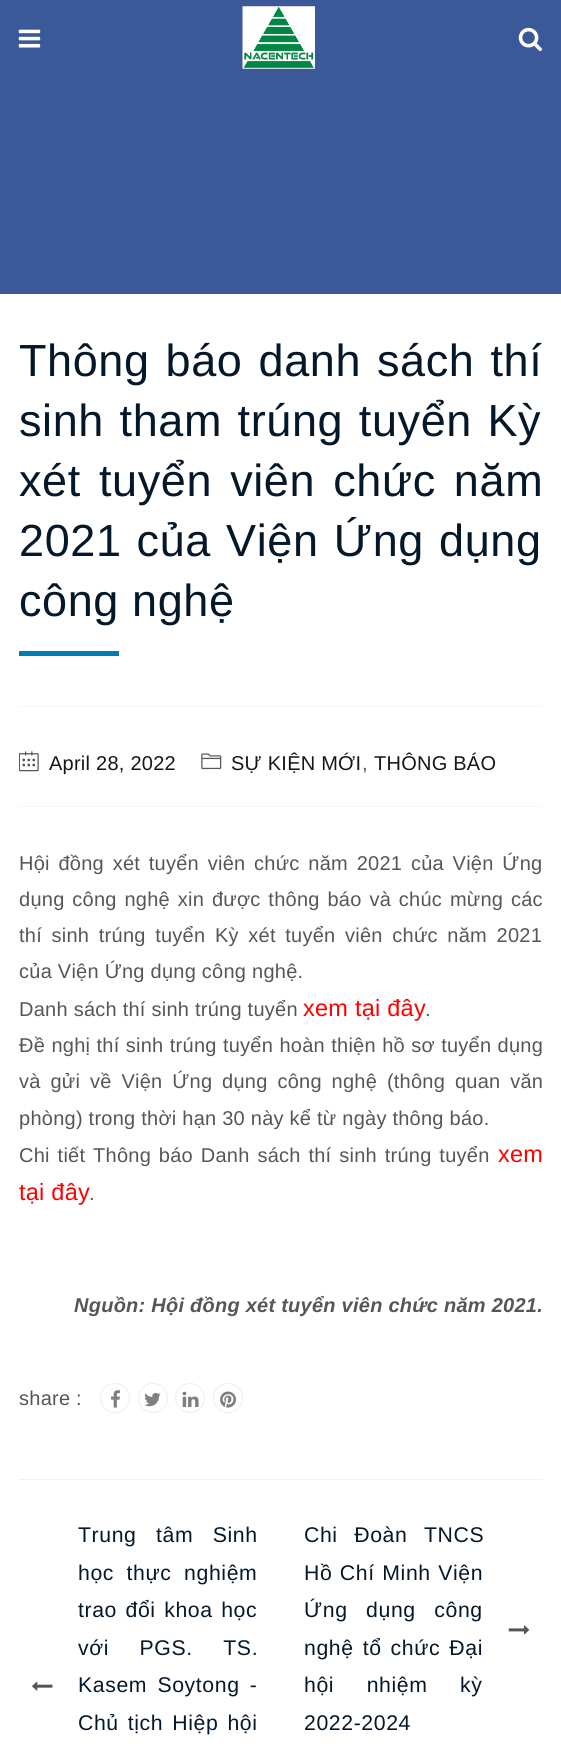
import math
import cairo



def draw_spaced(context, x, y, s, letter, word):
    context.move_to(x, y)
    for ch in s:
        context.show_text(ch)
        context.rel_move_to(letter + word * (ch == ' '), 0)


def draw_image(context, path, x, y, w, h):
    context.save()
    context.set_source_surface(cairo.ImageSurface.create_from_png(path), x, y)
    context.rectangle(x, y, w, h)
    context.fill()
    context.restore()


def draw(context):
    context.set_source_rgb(1, 1, 1)
    context.paint()
    context.set_source_rgb(59 / 255, 89 / 255, 152 / 255)
    context.rectangle(0, 0, 561, 294)
    context.fill()
    draw_image(context, "images/1.png", 18, 29, 23, 19)
    draw_image(context, "images/2.png", 242, 6, 73, 63)
    draw_image(context, "images/3.png", 518, 27, 24, 25)
    context.set_source_rgb(247 / 255, 247 / 255, 247 / 255)
    context.rectangle(19, 706, 524, 1)
    context.fill()
    context.set_source_rgb(0, 124 / 255, 186 / 255)
    context.rectangle(19, 651, 100, 5)
    context.fill()
    context.set_source_rgb(247 / 255, 247 / 255, 247 / 255)
    context.rectangle(19, 806, 524, 1)
    context.fill()
    draw_image(context, "images/4.png", 19, 751, 20, 21)
    draw_image(context, "images/5.png", 201, 753, 21, 17)
    context.arc(115, 1398, 14.5, 0, 2 * math.pi)
    context.set_source_rgb(238 / 255, 238 / 255, 238 / 255)
    context.set_line_width(1)
    context.stroke()
    draw_image(context, "images/6.png", 111, 1390, 10, 18)
    context.arc(153, 1398, 14.5, 0, 2 * math.pi)
    context.stroke()
    draw_image(context, "images/7.png", 144, 1392, 17, 15)
    context.arc(190, 1398, 14.5, 0, 2 * math.pi)
    context.stroke()
    draw_image(context, "images/8.png", 182, 1391, 17, 17)
    context.arc(228, 1398, 14.5, 0, 2 * math.pi)
    context.stroke()
    draw_image(context, "images/9.png", 220, 1391, 17, 17)
    context.set_source_rgb(242 / 255, 242 / 255, 242 / 255)
    context.rectangle(19, 1479, 524, 1)
    context.fill()
    draw_image(context, "images/10.png", 32, 1681, 21, 10)
    draw_image(context, "images/11.png", 508, 1625, 22, 10)
    context.select_font_face("Liberation Sans")
    context.set_font_size(45)
    context.set_source_rgb(5 / 255, 24 / 255, 41 / 255)
    draw_spaced(context, 19, 376, "Thông báo danh sách thí", 0.6, 2.9)
    draw_spaced(context, 19, 436, "sinh tham trúng tuyển Kỳ", 0.6, 2.5)
    draw_spaced(context, 19, 496, "xét tuyển viên chức năm", 0.6, 5)
    draw_spaced(context, 19, 556, "2021 của Viện Ứng dụng", 0.6, 2)
    draw_spaced(context, 19, 616, "công nghệ", 0.6, 0)
    context.set_font_size(20)
    context.set_source_rgb(23 / 255, 23 / 255, 23 / 255)
    draw_spaced(context, 49, 770, "April 28, 2022", 0.25, 0)
    draw_spaced(context, 231, 770, "SỰ KIỆN MỚI", 0.25, 0)
    context.set_source_rgb(86 / 255, 86 / 255, 86 / 255)
    draw_spaced(context, 362, 770, ",", 0.25, 0)
    context.set_source_rgb(23 / 255, 23 / 255, 23 / 255)
    draw_spaced(context, 374, 770, "THÔNG BÁO", 0.25, 0)
    context.set_source_rgb(86 / 255, 86 / 255, 86 / 255)
    draw_spaced(context, 19, 870, "Hội đồng xét tuyển viên chức năm 2021 của Viện Ứng", 0.25, 2.9)
    draw_spaced(context, 19, 906, "dụng công nghệ xin được thông báo và chúc mừng các", 0.25, 2)
    draw_spaced(context, 19, 942, "thí sinh trúng tuyển Kỳ xét tuyển viên chức năm 2021", 0.25, 3.75)
    draw_spaced(context, 19, 978, "của Viện Ứng dụng công nghệ.", 0.25, 0)
    draw_spaced(context, 19, 1016, "Danh sách thí sinh trúng tuyển", 0.25, 0)
    context.set_font_size(23.5)
    context.set_source_rgb(1, 0, 0)
    draw_spaced(context, 303, 1016, "xem tại đây", 0.25, 0)
    context.set_font_size(20)
    context.set_source_rgb(86 / 255, 86 / 255, 86 / 255)
    draw_spaced(context, 425, 1016, ".", 0.25, 0)
    draw_spaced(context, 19, 1052, "Đề nghị thí sinh trúng tuyển hoàn thiện hồ sơ tuyển dụng", 0.25, 0.5)
    draw_spaced(context, 19, 1088, "và gửi về Viện Ứng dụng công nghệ (thông quan văn", 0.25, 4)
    draw_spaced(context, 19, 1125, "phòng) trong thời hạn 30 này kể từ ngày thông báo.", 0.25, 0)
    draw_spaced(context, 19, 1162, "Chi tiết Thông báo Danh sách thí sinh trúng tuyển", 0.25, 2)
    context.set_font_size(23.5)
    context.set_source_rgb(1, 0, 0)
    draw_spaced(context, 498, 1162, "xem", 0.25, 0)
    draw_spaced(context, 19, 1200, "tại đây", 0.25, 0)
    context.set_font_size(20)
    context.set_source_rgb(86 / 255, 86 / 255, 86 / 255)
    draw_spaced(context, 89, 1200, ".", 0.25, 0)
    context.select_font_face("Liberation Sans", cairo.FontSlant.ITALIC, cairo.FontWeight.BOLD)
    draw_spaced(context, 74, 1312, "Nguồn: Hội đồng xét tuyển viên chức năm 2021.", 0.25, 0)
    context.select_font_face("Liberation Sans")
    draw_spaced(context, 19, 1405, "share :", 0.25, 0)
    context.set_font_size(21.25)
    context.set_source_rgb(5 / 255, 24 / 255, 41 / 255)
    draw_spaced(context, 78, 1542, "Trung tâm Sinh", 0.6, 13)
    draw_spaced(context, 78, 1580, "học thực nghiệm", 0.6, 6)
    draw_spaced(context, 78, 1617, "trao đổi khoa học", 0.6, 2)
    draw_spaced(context, 78, 1655, "với PGS. TS.", 0.6, 24)
    draw_spaced(context, 78, 1692, "Kasem Soytong -", 0.6, 3.75)
    draw_spaced(context, 78, 1730, "Chủ tịch Hiệp hội", 0.6, 2.5)
    draw_spaced(context, 304, 1542, "Chi Đoàn TNCS", 0.6, 10)
    draw_spaced(context, 304, 1580, "Hồ Chí Minh Viện", 0.6, 1)
    draw_spaced(context, 304, 1617, "Ứng dụng công", 0.6, 12)
    draw_spaced(context, 304, 1655, "nghệ tổ chức Đại", 0.6, 2.5)
    draw_spaced(context, 304, 1692, "hội nhiệm kỳ", 0.6, 26)
    draw_spaced(context, 304, 1730, "2022-2024", 0.6, 0)


surface = cairo.ImageSurface(cairo.Format.RGB24, 561, 1759)
context = cairo.Context(surface)
options = cairo.FontOptions()
options.set_hint_metrics(cairo.HintMetrics.OFF)
options.set_hint_style(cairo.HintStyle.NONE)
context.set_font_options(options)
context.set_miter_limit(4)
draw(context)
surface.write_to_png("out.png")
